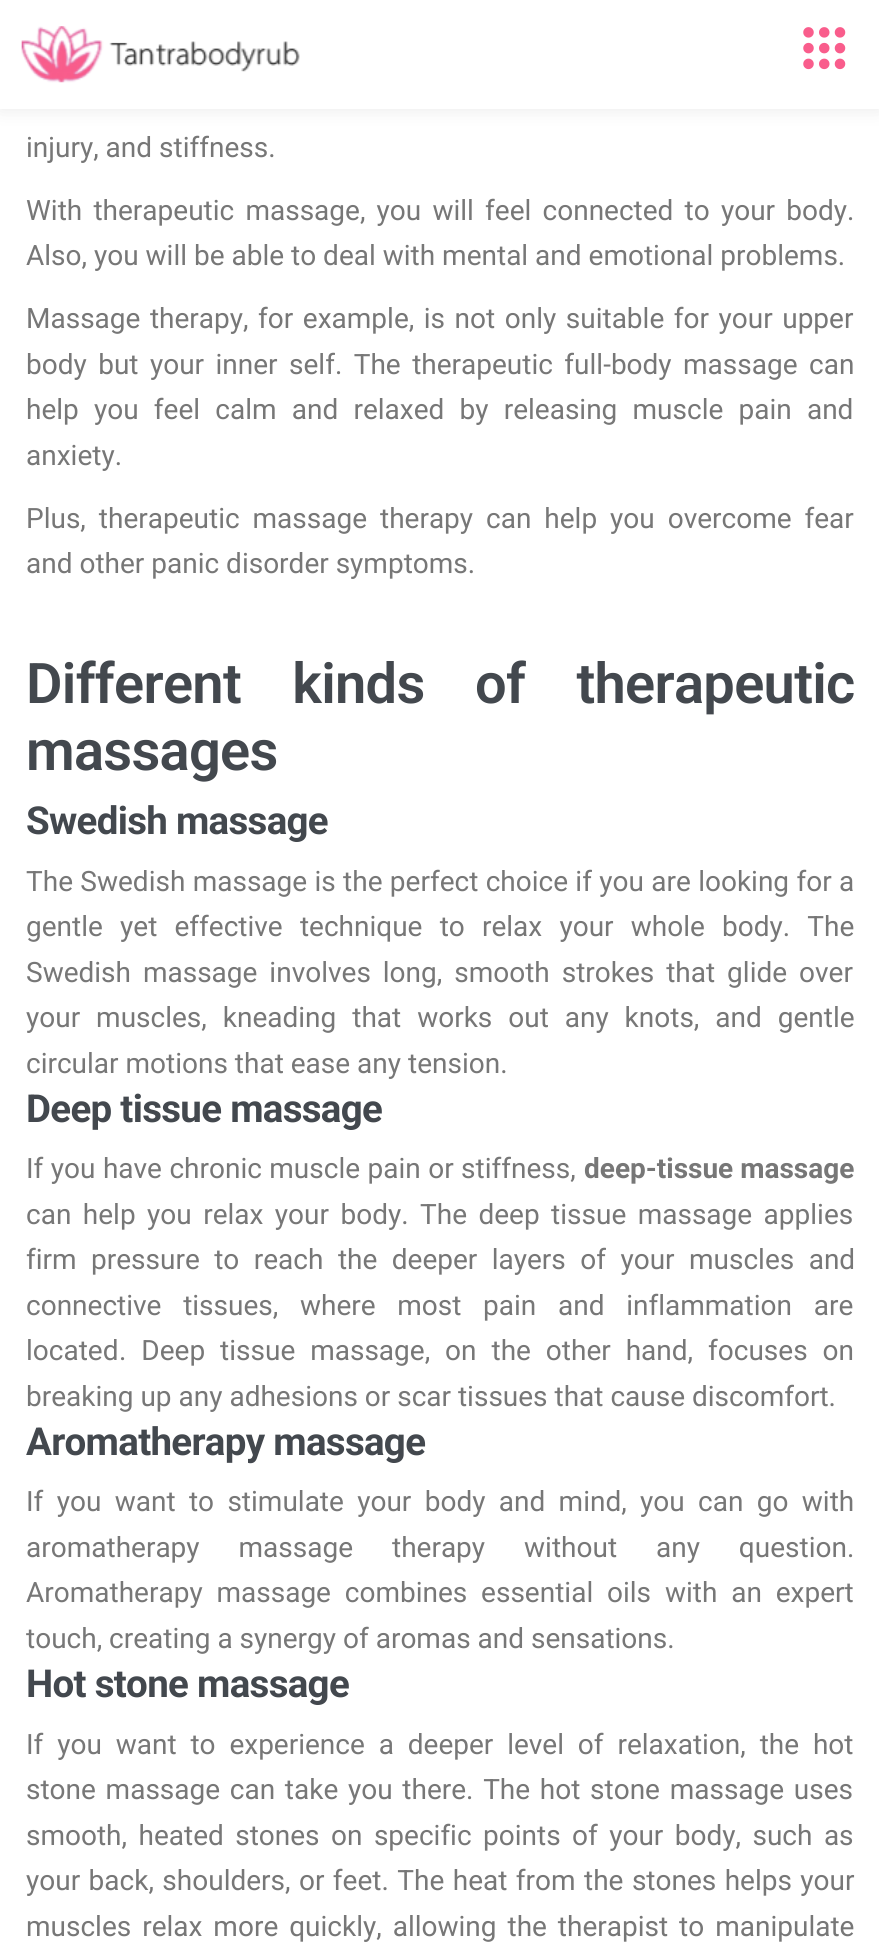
import math
import cairo



def draw_spaced(context, x, y, s, letter, word):
    context.move_to(x, y)
    for ch in s:
        context.show_text(ch)
        context.rel_move_to(letter + word * (ch == ' '), 0)


def rounded_rect(context, x, y, w, h, r):
    context.new_sub_path()
    for i, (u, v) in enumerate([(x + w - r, y + h - r), (x + r, y + h - r), (x + r, y + r), (x + w - r, y + r)]):
        context.arc(u, v, r, i * math.pi / 2, (i + 1) * math.pi / 2)
    context.close_path()


def draw_shadow(context, x, y, w, h, r, blur, alpha):
    context.push_group_with_content(cairo.Content.ALPHA)
    context.set_operator(cairo.Operator.SOURCE)
    for i in range(15, -16, -2):
        e = blur * i / 6
        if min(w, h) + 2 * e > 0:
            context.set_source_rgba(0, 0, 0, alpha * math.erfc((i - 1) / 8.5) / 2)
            rounded_rect(context, x - e, y - e, w + 2 * e, h + 2 * e, max(0, min(r + e + blur * .6, min(w, h) / 2 + e)))
            context.fill()
    context.mask(context.pop_group())


def draw_image(context, path, x, y, w, h):
    context.save()
    context.set_source_surface(cairo.ImageSurface.create_from_png(path), x, y)
    context.rectangle(x, y, w, h)
    context.fill()
    context.restore()


def draw(context):
    context.set_source_rgb(1, 1, 1)
    context.paint()
    context.set_source_rgb(233 / 255, 233 / 255, 233 / 255)
    draw_shadow(context, 0, 0, 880, 109, 0, 9, 1)
    context.set_source_rgb(1, 1, 1)
    context.rectangle(0, 0, 879, 109)
    context.fill()
    draw_image(context, "images/1.png", 21, 26, 279, 57)
    draw_image(context, "images/2.png", 803, 27, 43, 43)
    context.select_font_face("Roboto")
    context.set_font_size(28)
    context.set_source_rgb(119 / 255, 119 / 255, 119 / 255)
    context.move_to(26, 157)
    context.show_text("injury, and stiffness.")
    draw_spaced(context, 26, 220, "With therapeutic massage, you will feel connected to your body.", 0, 4.25)
    context.move_to(26, 265)
    context.show_text("Also, you will be able to deal with mental and emotional problems.")
    draw_spaced(context, 26, 328, "Massage therapy, for example, is not only suitable for your upper", 0, 2.6)
    draw_spaced(context, 26, 374, "body but your inner self. The therapeutic full-body massage can", 0, 4.5)
    draw_spaced(context, 26, 419, "help you feel calm and relaxed by releasing muscle pain and", 0, 8.25)
    context.move_to(26, 465)
    context.show_text("anxiety.")
    draw_spaced(context, 26, 528, "Plus, therapeutic massage therapy can help you overcome fear", 0, 6)
    context.move_to(26, 573)
    context.show_text("and other panic disorder symptoms.")
    context.select_font_face("Roboto SemiBold")
    context.set_font_size(56)
    context.set_source_rgb(67 / 255, 72 / 255, 78 / 255)
    draw_spaced(context, 26, 703, "Different kinds", -0.7, 38)
    draw_spaced(context, 475, 703, "of therapeutic", -0.7, 38)
    draw_spaced(context, 26, 770, "massages", -0.7, 0)
    context.select_font_face("Roboto", cairo.FontSlant.NORMAL, cairo.FontWeight.BOLD)
    context.set_font_size(38.5)
    draw_spaced(context, 26, 834, "Swedish massage", -0.7, 0)
    context.select_font_face("Roboto")
    context.set_font_size(28)
    context.set_source_rgb(119 / 255, 119 / 255, 119 / 255)
    draw_spaced(context, 26, 891, "The Swedish massage is the perfect choice if you are looking for a", 0, 0.4)
    draw_spaced(context, 26, 936, "gentle yet effective technique to relax your whole body. The", 0, 10.25)
    draw_spaced(context, 26, 982, "Swedish massage involves long, smooth strokes that glide over", 0, 5)
    draw_spaced(context, 26, 1027, "your muscles, kneading that works out any knots, and gentle", 0, 9)
    context.move_to(26, 1073)
    context.show_text("circular motions that ease any tension.")
    context.select_font_face("Roboto", cairo.FontSlant.NORMAL, cairo.FontWeight.BOLD)
    context.set_font_size(38.5)
    context.set_source_rgb(67 / 255, 72 / 255, 78 / 255)
    draw_spaced(context, 26, 1122, "Deep tissue massage", -0.7, 0)
    context.select_font_face("Roboto")
    context.set_font_size(28)
    context.set_source_rgb(119 / 255, 119 / 255, 119 / 255)
    draw_spaced(context, 26, 1178, "If you have chronic muscle pain or stiffness,", 0, 0.5)
    context.select_font_face("Roboto", cairo.FontSlant.NORMAL, cairo.FontWeight.BOLD)
    context.move_to(584, 1178)
    context.show_text("deep-tissue massage")
    context.select_font_face("Roboto")
    draw_spaced(context, 26, 1224, "can help you relax your body. The deep tissue massage applies", 0, 4.5)
    draw_spaced(context, 26, 1269, "firm pressure to reach the deeper layers of your muscles and", 0, 7.5)
    draw_spaced(context, 26, 1315, "connective tissues, where most pain and inflammation are", 0, 14.75)
    context.move_to(26, 1360)
    context.show_text("located")
    draw_spaced(context, 119, 1360, ". Deep tissue massage, on the other hand, focuses on", 0, 8)
    context.move_to(26, 1406)
    context.show_text("breaking up any adhesions or scar tissues that cause discomfort.")
    context.select_font_face("Roboto", cairo.FontSlant.NORMAL, cairo.FontWeight.BOLD)
    context.set_font_size(38.5)
    context.set_source_rgb(67 / 255, 72 / 255, 78 / 255)
    draw_spaced(context, 26, 1455, "Aromatherapy massage", -0.7, 0)
    context.select_font_face("Roboto")
    context.set_font_size(28)
    context.set_source_rgb(119 / 255, 119 / 255, 119 / 255)
    draw_spaced(context, 26, 1511, "If you want to stimulate your body and mind, you can go with", 0, 6.4)
    draw_spaced(context, 26, 1557, "aromatherapy massage therapy without any question.", 0, 32)
    draw_spaced(context, 26, 1602, "Aromatherapy massage combines essential oils with an expert", 0, 6.9)
    context.move_to(26, 1648)
    context.show_text("touch, creating a synergy of aromas and sensations.")
    context.select_font_face("Roboto", cairo.FontSlant.NORMAL, cairo.FontWeight.BOLD)
    context.set_font_size(38.5)
    context.set_source_rgb(67 / 255, 72 / 255, 78 / 255)
    draw_spaced(context, 26, 1697, "Hot stone massage", -0.7, 0)
    context.select_font_face("Roboto")
    context.set_font_size(28)
    context.set_source_rgb(119 / 255, 119 / 255, 119 / 255)
    draw_spaced(context, 26, 1754, "If you want to experience a deeper level of relaxation, the hot", 0, 6.9)
    draw_spaced(context, 26, 1799, "stone massage can take you there. The hot stone massage uses", 0, 2.75)
    draw_spaced(context, 26, 1845, "smooth, heated stones on specific points of your body, such as", 0, 4.5)
    draw_spaced(context, 26, 1890, "your back, shoulders, or feet. The heat from the stones helps your", 0, 1.5)
    draw_spaced(context, 26, 1936, "muscles relax more quickly, allowing the therapist to manipulate", 0, 4)


surface = cairo.ImageSurface(cairo.Format.RGB24, 879, 1958)
context = cairo.Context(surface)
options = cairo.FontOptions()
options.set_hint_metrics(cairo.HintMetrics.OFF)
options.set_hint_style(cairo.HintStyle.NONE)
context.set_font_options(options)
context.set_miter_limit(4)
draw(context)
surface.write_to_png("out.png")
